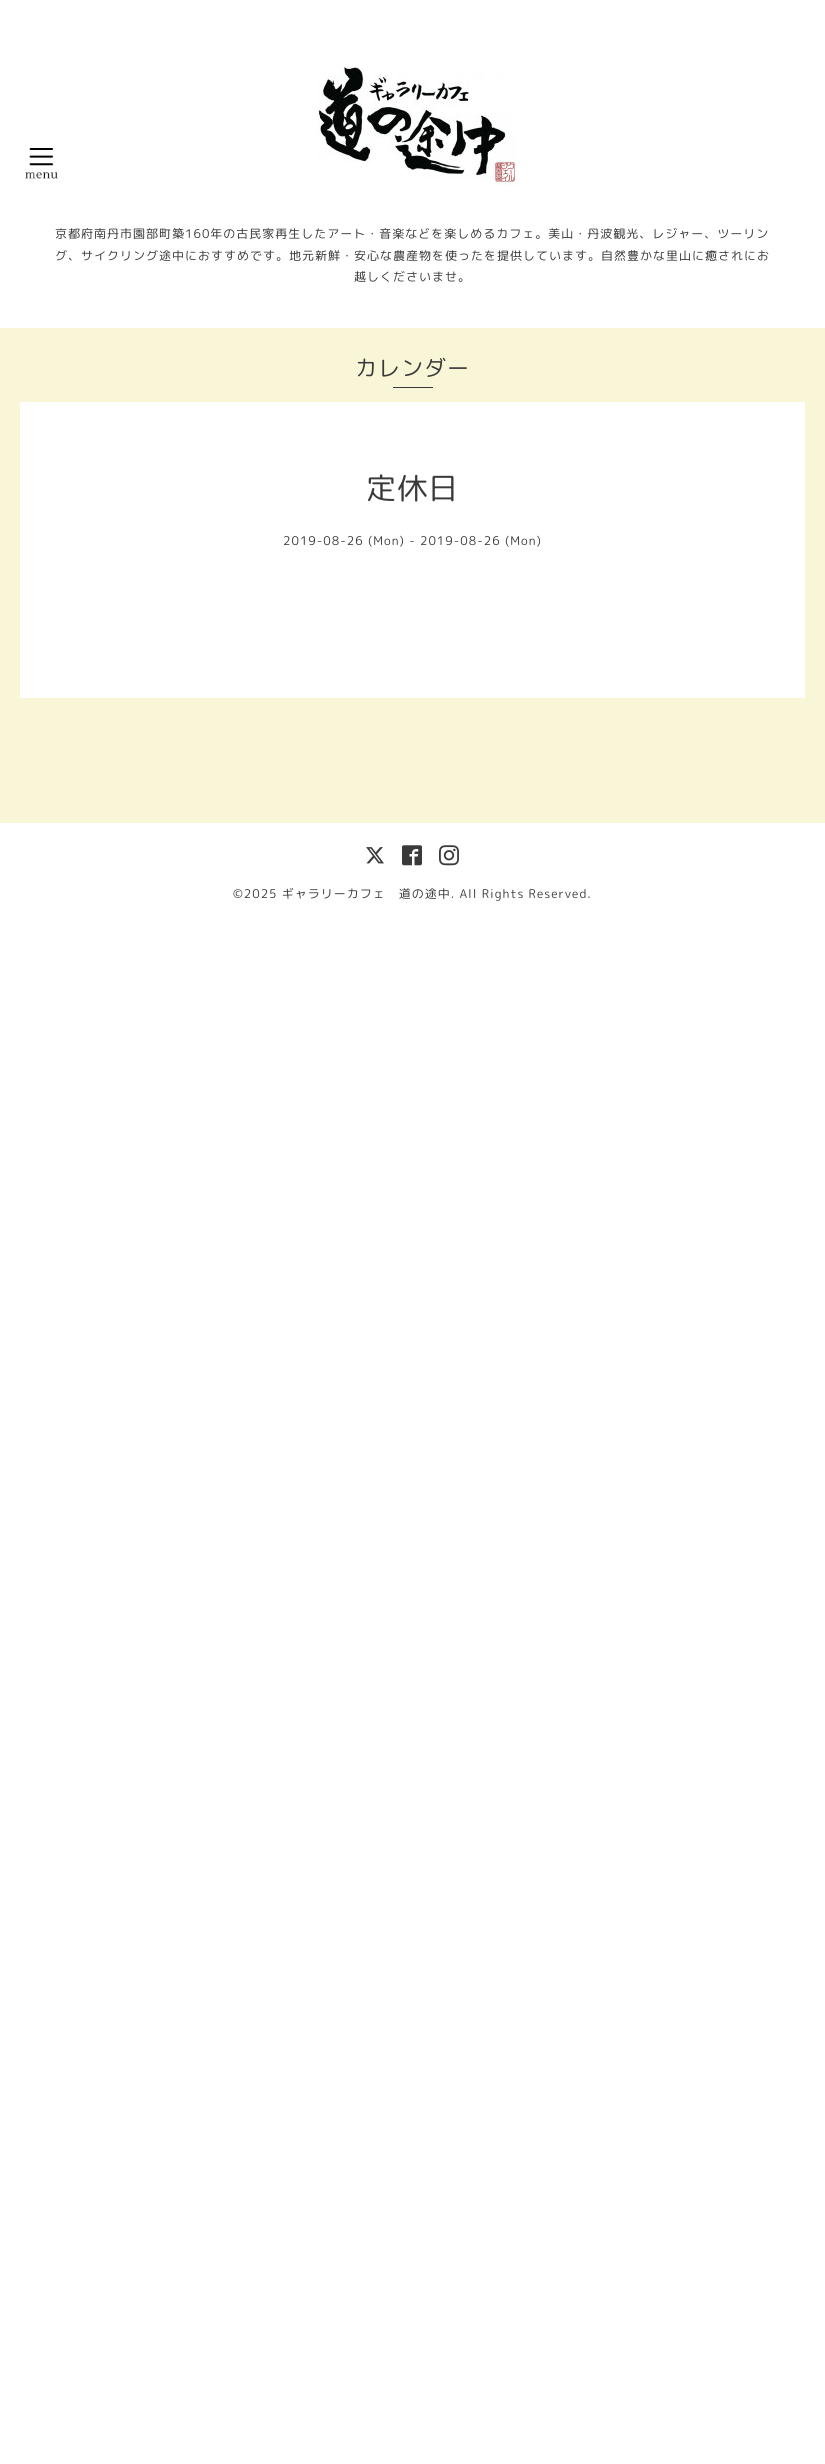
import math
import cairo



def draw_spaced(context, x, y, s, letter, word):
    context.move_to(x, y)
    for ch in s:
        context.show_text(ch)
        context.rel_move_to(letter + word * (ch == ' '), 0)


def draw_image(context, path, x, y, w, h):
    context.save()
    context.set_source_surface(cairo.ImageSurface.create_from_png(path), x, y)
    context.rectangle(x, y, w, h)
    context.fill()
    context.restore()


def draw(context):
    context.set_source_rgb(1, 1, 1)
    context.paint()
    draw_image(context, "images/1.png", 25, 148, 33, 31)
    draw_image(context, "images/2.png", 317, 66, 200, 120)
    context.set_source_rgb(249 / 255, 246 / 255, 215 / 255)
    context.rectangle(0, 328, 825, 495)
    context.fill()
    context.set_source_rgb(58 / 255, 58 / 255, 58 / 255)
    context.rectangle(393, 387, 40, 1)
    context.fill()
    context.set_source_rgb(1, 1, 1)
    context.rectangle(20, 402, 785, 296)
    context.fill()
    draw_image(context, "images/3.png", 366, 847, 18, 17)
    draw_image(context, "images/4.png", 402, 845, 20, 21)
    draw_image(context, "images/5.png", 439, 845, 20, 21)
    context.select_font_face("Rounded Mplus 1c")
    context.set_font_size(12)
    context.set_source_rgb(58 / 255, 58 / 255, 58 / 255)
    draw_spaced(context, 55, 238, "京都府南丹市園部町築160年の古民家再生したアート・音楽などを楽しめるカフェ。美山・丹波観光、レジャー、ツーリン", 1, 0)
    draw_spaced(context, 55, 260, "グ、サイクリング途中におすすめです。地元新鮮・安心な農産物を使ったを提供しています。自然豊かな里山に癒されにお", 1, 0)
    draw_spaced(context, 354, 281, "越しくださいませ。", 1, 0)
    context.set_font_size(22)
    draw_spaced(context, 355, 376, "カレンダー", 1, 0)
    context.set_font_size(30)
    draw_spaced(context, 366, 499, "定休日", 1, 0)
    context.set_font_size(12)
    draw_spaced(context, 283, 545, "2019-08-26 (Mon) - 2019-08-26 (Mon)", 1, 0)
    draw_spaced(context, 233, 898, "©2025 ギャラリーカフェ　道の途中. All Rights Reserved.", 1, 0)


surface = cairo.ImageSurface(cairo.Format.RGB24, 825, 2464)
context = cairo.Context(surface)
options = cairo.FontOptions()
options.set_hint_metrics(cairo.HintMetrics.OFF)
options.set_hint_style(cairo.HintStyle.NONE)
context.set_font_options(options)
context.set_miter_limit(4)
draw(context)
surface.write_to_png("out.png")
